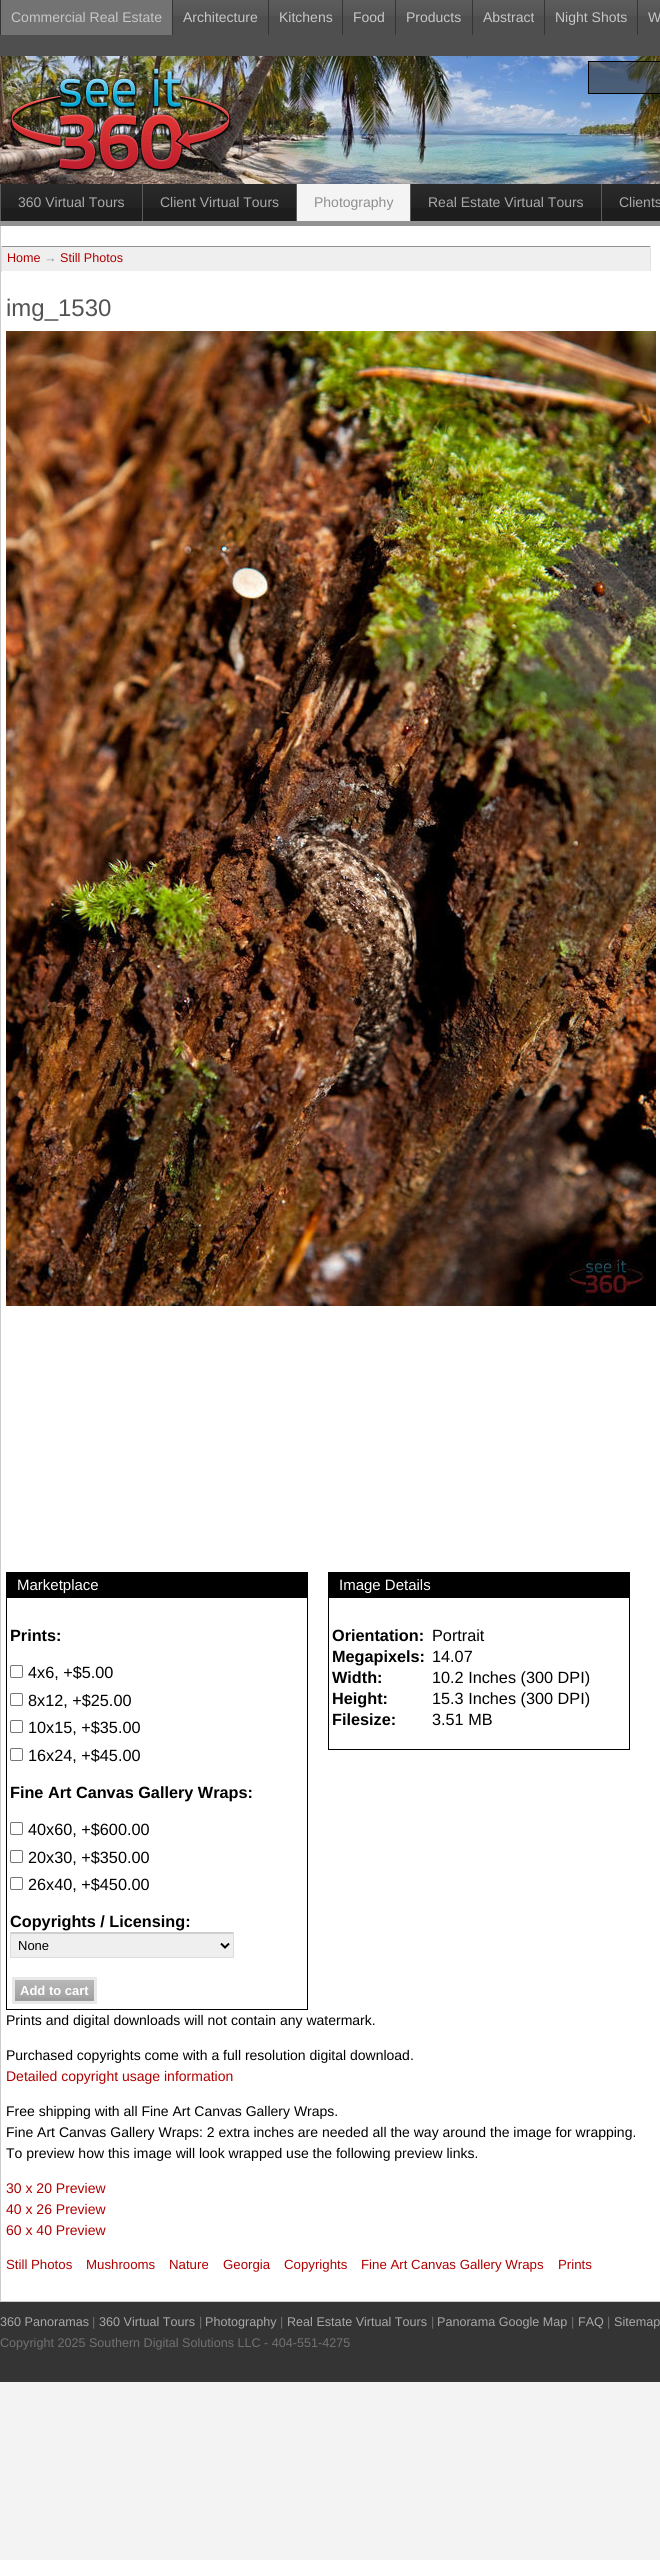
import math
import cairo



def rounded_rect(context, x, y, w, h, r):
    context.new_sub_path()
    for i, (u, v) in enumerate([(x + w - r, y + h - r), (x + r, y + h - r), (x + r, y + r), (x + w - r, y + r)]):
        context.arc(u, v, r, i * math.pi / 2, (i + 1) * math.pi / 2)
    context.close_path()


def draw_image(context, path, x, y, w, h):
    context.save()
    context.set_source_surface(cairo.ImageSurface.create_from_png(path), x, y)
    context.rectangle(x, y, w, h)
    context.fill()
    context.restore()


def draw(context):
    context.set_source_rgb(243 / 255, 243 / 255, 243 / 255)
    context.paint()
    context.set_source_rgb(79 / 255, 79 / 255, 79 / 255)
    context.rectangle(0, 16, 660, 40)
    context.fill()
    draw_image(context, "images/1.png", 173, 0, 487, 16)
    context.set_source_rgb(115 / 255, 115 / 255, 115 / 255)
    context.rectangle(1, 0, 171, 35)
    context.fill()
    context.set_source_rgb(53 / 255, 53 / 255, 53 / 255)
    context.rectangle(0, 0, 1, 35)
    context.fill()
    context.rectangle(172, 0, 1, 35)
    context.fill()
    context.rectangle(268, 0, 1, 35)
    context.fill()
    context.rectangle(342, 0, 1, 35)
    context.fill()
    context.rectangle(395, 0, 1, 35)
    context.fill()
    context.rectangle(472, 0, 1, 35)
    context.fill()
    context.rectangle(544, 0, 1, 35)
    context.fill()
    context.rectangle(637, 0, 1, 35)
    context.fill()
    draw_image(context, "images/2.png", 0, 56, 660, 128)
    draw_image(context, "images/3.png", 9, 67, 222, 105)
    context.set_source_rgba(58 / 255, 58 / 255, 58 / 255, 0.6)
    context.rectangle(589, 62, 71, 31)
    context.fill()
    context.set_source_rgb(0, 0, 0)
    context.rectangle(588, 61, 72, 1)
    context.fill()
    context.rectangle(588, 93, 72, 1)
    context.fill()
    context.rectangle(588, 61, 1, 33)
    context.fill()
    context.set_source_rgb(29 / 255, 29 / 255, 29 / 255)
    context.rectangle(1, 208, 659, 13)
    context.fill()
    draw_image(context, "images/4.png", 1, 184, 659, 24)
    context.set_source_rgb(146 / 255, 146 / 255, 146 / 255)
    context.rectangle(0, 221, 660, 5)
    context.fill()
    context.set_source_rgb(91 / 255, 91 / 255, 91 / 255)
    context.rectangle(0, 184, 1, 37)
    context.fill()
    context.rectangle(142, 184, 1, 37)
    context.fill()
    context.set_source_rgb(244 / 255, 244 / 255, 244 / 255)
    context.rectangle(297, 184, 113, 37)
    context.fill()
    context.set_source_rgb(91 / 255, 91 / 255, 91 / 255)
    context.rectangle(296, 184, 1, 37)
    context.fill()
    context.rectangle(410, 184, 1, 37)
    context.fill()
    context.rectangle(601, 184, 1, 37)
    context.fill()
    context.set_source_rgb(1, 1, 1)
    context.rectangle(1, 226, 659, 2075)
    context.fill()
    context.set_source_rgb(204 / 255, 204 / 255, 204 / 255)
    context.rectangle(0, 2301, 660, 1)
    context.fill()
    context.rectangle(0, 226, 1, 2076)
    context.fill()
    context.set_source_rgb(239 / 255, 239 / 255, 239 / 255)
    context.rectangle(2, 247, 648, 24)
    context.fill()
    context.set_source_rgb(146 / 255, 146 / 255, 146 / 255)
    context.rectangle(1, 246, 650, 1)
    context.fill()
    context.set_source_rgb(226 / 255, 226 / 255, 226 / 255)
    context.rectangle(650, 246, 1, 26)
    context.fill()
    context.set_source_rgb(1, 1, 1)
    context.rectangle(650, 271, 1, 1)
    context.fill()
    context.set_source_rgb(226 / 255, 226 / 255, 226 / 255)
    context.rectangle(1, 246, 1, 26)
    context.fill()
    draw_image(context, "images/5.png", 6, 331, 650, 975)
    context.rectangle(6.5, 1572.5, 301, 437)
    context.set_source_rgb(0, 0, 0)
    context.set_line_width(1)
    context.stroke()
    context.rectangle(7, 1573, 300, 25)
    context.fill()
    rounded_rect(context, 10.5, 1665.5, 12, 12, 1.5)
    context.set_source_rgb(118 / 255, 118 / 255, 118 / 255)
    context.stroke()
    rounded_rect(context, 10.5, 1693.5, 12, 12, 1.5)
    context.stroke()
    rounded_rect(context, 10.5, 1720.5, 12, 12, 1.5)
    context.stroke()
    rounded_rect(context, 10.5, 1748.5, 12, 12, 1.5)
    context.stroke()
    rounded_rect(context, 10.5, 1822.5, 12, 12, 1.5)
    context.stroke()
    rounded_rect(context, 10.5, 1850.5, 12, 12, 1.5)
    context.stroke()
    rounded_rect(context, 10.5, 1877.5, 12, 12, 1.5)
    context.stroke()
    context.set_source_rgb(239 / 255, 239 / 255, 239 / 255)
    context.rectangle(11, 1934, 222, 23)
    context.fill()
    context.set_source_rgb(206 / 255, 206 / 255, 206 / 255)
    context.new_path()
    context.move_to(10, 1932)
    context.line_to(234, 1932)
    context.line_to(233, 1934)
    context.line_to(11, 1934)
    context.close_path()
    context.fill()
    context.set_source_rgb(221 / 255, 221 / 255, 221 / 255)
    context.new_path()
    context.move_to(234, 1932)
    context.line_to(234, 1958)
    context.line_to(233, 1957)
    context.line_to(233, 1934)
    context.close_path()
    context.fill()
    context.rectangle(10, 1957, 224, 1)
    context.fill()
    context.new_path()
    context.move_to(10, 1958)
    context.line_to(10, 1932)
    context.line_to(11, 1934)
    context.line_to(11, 1957)
    context.close_path()
    context.fill()
    context.new_path()
    context.move_to(221, 1943.5)
    context.line_to(225, 1947.5)
    context.line_to(229, 1943.5)
    context.set_source_rgb(0, 0, 0)
    context.set_line_width(2)
    context.stroke()
    context.set_source_rgb(158 / 255, 158 / 255, 158 / 255)
    context.rectangle(15, 1998, 79, 3)
    context.fill()
    draw_image(context, "images/6.png", 15, 1980, 79, 18)
    context.rectangle(13.5, 1978.5, 82, 24)
    context.set_source_rgb(233 / 255, 233 / 255, 233 / 255)
    context.set_line_width(3)
    context.stroke()
    context.rectangle(328.5, 1572.5, 301, 177)
    context.set_source_rgb(0, 0, 0)
    context.set_line_width(1)
    context.stroke()
    context.rectangle(329, 1573, 300, 25)
    context.fill()
    context.set_source_rgb(52 / 255, 52 / 255, 52 / 255)
    context.rectangle(0, 2302, 660, 80)
    context.fill()
    context.select_font_face("Liberation Sans")
    context.set_font_size(14)
    context.set_source_rgb(199 / 255, 199 / 255, 199 / 255)
    context.move_to(11, 22)
    context.show_text("Commercial Real Estate")
    context.move_to(183, 22)
    context.show_text("Architecture")
    context.move_to(279, 22)
    context.show_text("Kitchens")
    context.move_to(353, 22)
    context.show_text("Food")
    context.move_to(406, 22)
    context.show_text("Products")
    context.move_to(483, 22)
    context.show_text("Abstract")
    context.move_to(555, 22)
    context.show_text("Night Shots")
    context.move_to(648, 22)
    context.show_text("W")
    context.set_source_rgb(169 / 255, 169 / 255, 169 / 255)
    context.move_to(18, 207)
    context.show_text("360 Virtual Tours")
    context.move_to(160, 207)
    context.show_text("Client Virtual Tours")
    context.set_source_rgb(142 / 255, 142 / 255, 142 / 255)
    context.move_to(314, 207)
    context.show_text("Photography")
    context.set_source_rgb(169 / 255, 169 / 255, 169 / 255)
    context.move_to(428, 207)
    context.show_text("Real Estate Virtual Tours")
    context.move_to(619, 207)
    context.show_text("Clients")
    context.set_font_size(12.6)
    context.set_source_rgb(175 / 255, 0, 0)
    context.move_to(7, 262)
    context.show_text("Home")
    context.set_source_rgb(142 / 255, 142 / 255, 142 / 255)
    context.move_to(44, 262)
    context.show_text("→")
    context.set_source_rgb(175 / 255, 0, 0)
    context.move_to(60, 262)
    context.show_text("Still Photos")
    context.set_font_size(24)
    context.set_source_rgb(83 / 255, 83 / 255, 83 / 255)
    context.move_to(6, 316)
    context.show_text("img_1530")
    context.set_font_size(15)
    context.set_source_rgb(1, 1, 1)
    context.move_to(17, 1590)
    context.show_text("Marketplace")
    context.select_font_face("Liberation Sans", cairo.FontSlant.NORMAL, cairo.FontWeight.BOLD)
    context.set_font_size(16.25)
    context.set_source_rgb(0, 0, 0)
    context.move_to(10, 1641)
    context.show_text("Prints:")
    context.select_font_face("Liberation Sans")
    context.move_to(28, 1678)
    context.show_text("4x6, +$5.00")
    context.move_to(28, 1706)
    context.show_text("8x12, +$25.00")
    context.move_to(28, 1733)
    context.show_text("10x15, +$35.00")
    context.move_to(28, 1761)
    context.show_text("16x24, +$45.00")
    context.select_font_face("Liberation Sans", cairo.FontSlant.NORMAL, cairo.FontWeight.BOLD)
    context.move_to(10, 1798)
    context.show_text("Fine Art Canvas Gallery Wraps:")
    context.select_font_face("Liberation Sans")
    context.move_to(28, 1835)
    context.show_text("40x60, +$600.00")
    context.move_to(28, 1863)
    context.show_text("20x30, +$350.00")
    context.move_to(28, 1890)
    context.show_text("26x40, +$450.00")
    context.select_font_face("Liberation Sans", cairo.FontSlant.NORMAL, cairo.FontWeight.BOLD)
    context.move_to(10, 1927)
    context.show_text("Copyrights / Licensing:")
    context.select_font_face("Liberation Sans")
    context.set_font_size(13)
    context.move_to(18, 1950)
    context.show_text("None")
    context.select_font_face("Liberation Sans", cairo.FontSlant.NORMAL, cairo.FontWeight.BOLD)
    context.set_source_rgb(1, 1, 1)
    context.move_to(20, 1995)
    context.show_text("Add to cart")
    context.select_font_face("Liberation Sans")
    context.set_font_size(15)
    context.move_to(339, 1590)
    context.show_text("Image Details")
    context.select_font_face("Liberation Sans", cairo.FontSlant.NORMAL, cairo.FontWeight.BOLD)
    context.set_font_size(16.25)
    context.set_source_rgb(0, 0, 0)
    context.move_to(332, 1641)
    context.show_text("Orientation:")
    context.select_font_face("Liberation Sans")
    context.move_to(432, 1641)
    context.show_text("Portrait")
    context.select_font_face("Liberation Sans", cairo.FontSlant.NORMAL, cairo.FontWeight.BOLD)
    context.move_to(332, 1662)
    context.show_text("Megapixels:")
    context.select_font_face("Liberation Sans")
    context.move_to(432, 1662)
    context.show_text("14.07")
    context.select_font_face("Liberation Sans", cairo.FontSlant.NORMAL, cairo.FontWeight.BOLD)
    context.move_to(332, 1683)
    context.show_text("Width:")
    context.select_font_face("Liberation Sans")
    context.move_to(432, 1683)
    context.show_text("10.2 Inches (300 DPI)")
    context.select_font_face("Liberation Sans", cairo.FontSlant.NORMAL, cairo.FontWeight.BOLD)
    context.move_to(332, 1704)
    context.show_text("Height:")
    context.select_font_face("Liberation Sans")
    context.move_to(432, 1704)
    context.show_text("15.3 Inches (300 DPI)")
    context.select_font_face("Liberation Sans", cairo.FontSlant.NORMAL, cairo.FontWeight.BOLD)
    context.move_to(332, 1725)
    context.show_text("Filesize:")
    context.select_font_face("Liberation Sans")
    context.move_to(432, 1725)
    context.show_text("3.51 MB")
    context.set_font_size(14)
    context.move_to(6, 2025)
    context.show_text("Prints and digital downloads will not contain any watermark.")
    context.move_to(6, 2060)
    context.show_text("Purchased copyrights come with a full resolution digital download.")
    context.set_source_rgb(175 / 255, 0, 0)
    context.move_to(6, 2081)
    context.show_text("Detailed copyright usage information")
    context.set_source_rgb(0, 0, 0)
    context.move_to(6, 2116)
    context.show_text("Free shipping with all Fine Art Canvas Gallery Wraps.")
    context.move_to(6, 2137)
    context.show_text("Fine Art Canvas Gallery Wraps: 2 extra inches are needed all the way around the image for wrapping.")
    context.move_to(6, 2158)
    context.show_text("To preview how this image will look wrapped use the following preview links.")
    context.set_source_rgb(175 / 255, 0, 0)
    context.move_to(6, 2193)
    context.show_text("30 x 20 Preview")
    context.move_to(6, 2214)
    context.show_text("40 x 26 Preview")
    context.move_to(6, 2235)
    context.show_text("60 x 40 Preview")
    context.set_font_size(13.25)
    context.move_to(6, 2269)
    context.show_text("Still Photos")
    context.move_to(86, 2269)
    context.show_text("Mushrooms")
    context.move_to(169, 2269)
    context.show_text("Nature")
    context.move_to(223, 2269)
    context.show_text("Georgia")
    context.move_to(284, 2269)
    context.show_text("Copyrights")
    context.move_to(361, 2269)
    context.show_text("Fine Art Canvas Gallery Wraps")
    context.move_to(558, 2269)
    context.show_text("Prints")
    context.set_font_size(12.6)
    context.set_source_rgb(169 / 255, 169 / 255, 169 / 255)
    context.move_to(0, 2326)
    context.show_text("360 Panoramas")
    context.set_source_rgb(114 / 255, 113 / 255, 113 / 255)
    context.move_to(92, 2326)
    context.show_text("|")
    context.set_source_rgb(169 / 255, 169 / 255, 169 / 255)
    context.move_to(99, 2326)
    context.show_text("360 Virtual Tours")
    context.set_source_rgb(114 / 255, 113 / 255, 113 / 255)
    context.move_to(199, 2326)
    context.show_text("|")
    context.set_source_rgb(169 / 255, 169 / 255, 169 / 255)
    context.move_to(205, 2326)
    context.show_text("Photography")
    context.set_source_rgb(114 / 255, 113 / 255, 113 / 255)
    context.move_to(280, 2326)
    context.show_text("|")
    context.set_source_rgb(169 / 255, 169 / 255, 169 / 255)
    context.move_to(287, 2326)
    context.show_text("Real Estate Virtual Tours")
    context.set_source_rgb(114 / 255, 113 / 255, 113 / 255)
    context.move_to(431, 2326)
    context.show_text("|")
    context.set_source_rgb(169 / 255, 169 / 255, 169 / 255)
    context.move_to(437, 2326)
    context.show_text("Panorama Google Map")
    context.set_source_rgb(114 / 255, 113 / 255, 113 / 255)
    context.move_to(571, 2326)
    context.show_text("|")
    context.set_source_rgb(169 / 255, 169 / 255, 169 / 255)
    context.move_to(578, 2326)
    context.show_text("FAQ")
    context.set_source_rgb(114 / 255, 113 / 255, 113 / 255)
    context.move_to(607, 2326)
    context.show_text("|")
    context.set_source_rgb(169 / 255, 169 / 255, 169 / 255)
    context.move_to(614, 2326)
    context.show_text("Sitemap")
    context.set_source_rgb(114 / 255, 113 / 255, 113 / 255)
    context.move_to(0, 2347)
    context.show_text("Copyright 2025 Southern Digital Solutions LLC - 404-551-4275")


surface = cairo.ImageSurface(cairo.Format.RGB24, 660, 2560)
context = cairo.Context(surface)
options = cairo.FontOptions()
options.set_hint_metrics(cairo.HintMetrics.OFF)
options.set_hint_style(cairo.HintStyle.NONE)
context.set_font_options(options)
context.set_miter_limit(4)
draw(context)
surface.write_to_png("out.png")
